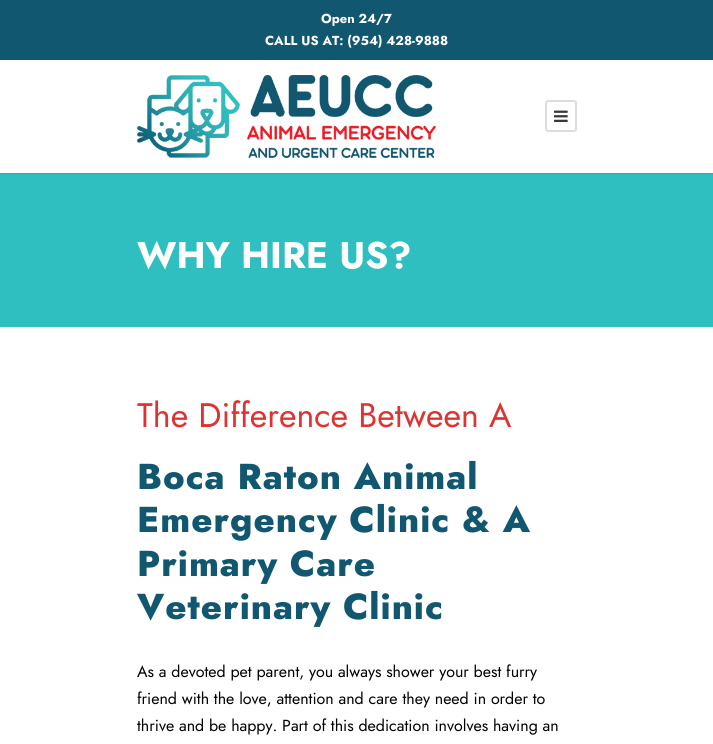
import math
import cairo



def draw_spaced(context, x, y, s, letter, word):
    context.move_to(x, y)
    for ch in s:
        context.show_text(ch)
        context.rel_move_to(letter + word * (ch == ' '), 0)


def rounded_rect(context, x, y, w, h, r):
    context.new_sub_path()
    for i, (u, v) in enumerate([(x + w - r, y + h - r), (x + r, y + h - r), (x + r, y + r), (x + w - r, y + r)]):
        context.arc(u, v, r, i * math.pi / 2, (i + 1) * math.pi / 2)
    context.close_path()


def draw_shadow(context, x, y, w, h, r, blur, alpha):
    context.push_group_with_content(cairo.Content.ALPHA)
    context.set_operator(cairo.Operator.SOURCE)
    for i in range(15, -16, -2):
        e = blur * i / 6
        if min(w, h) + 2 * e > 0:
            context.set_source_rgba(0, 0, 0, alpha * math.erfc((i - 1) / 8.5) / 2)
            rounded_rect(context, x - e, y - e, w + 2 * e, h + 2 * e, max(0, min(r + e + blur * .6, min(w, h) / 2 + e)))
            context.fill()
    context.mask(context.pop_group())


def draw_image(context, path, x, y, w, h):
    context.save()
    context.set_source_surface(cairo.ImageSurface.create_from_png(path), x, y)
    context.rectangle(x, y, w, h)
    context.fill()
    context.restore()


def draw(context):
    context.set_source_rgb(1, 1, 1)
    context.paint()
    context.set_source_rgb(18 / 255, 87 / 255, 112 / 255)
    context.rectangle(0, 0, 713, 60)
    context.fill()
    context.set_source_rgb(47 / 255, 191 / 255, 193 / 255)
    context.rectangle(0, 173, 713, 154)
    context.fill()
    context.save()
    context.rectangle(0, 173, 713, 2)
    context.clip()
    context.set_source_rgb(0, 0, 0)
    draw_shadow(context, 0, 61, 713, 113, 0, 1, 0.1)
    context.restore()
    draw_image(context, "images/1.png", 137, 75, 299, 83)
    rounded_rect(context, 546, 101, 30, 30, 2)
    context.set_source_rgb(221 / 255, 221 / 255, 221 / 255)
    context.stroke()
    draw_image(context, "images/2.png", 554, 110, 14, 12)
    context.select_font_face("Jost", cairo.FontSlant.NORMAL, cairo.FontWeight.BOLD)
    context.set_font_size(13)
    context.set_source_rgb(1, 1, 1)
    context.move_to(321, 23)
    context.show_text("Open 24/7")
    context.move_to(265, 45)
    context.show_text("CALL US AT: (954) 428-9888")
    context.set_font_size(37)
    context.move_to(137, 268)
    context.show_text("WHY HIRE US?")
    context.select_font_face("Jost")
    context.set_font_size(34)
    context.set_source_rgb(221 / 255, 51 / 255, 51 / 255)
    context.move_to(137, 427)
    context.show_text("The Difference Between A")
    context.select_font_face("Jost ExtraBold")
    context.set_font_size(36)
    context.set_source_rgb(18 / 255, 87 / 255, 112 / 255)
    draw_spaced(context, 137, 489, "Boca Raton Animal", 1, 0)
    draw_spaced(context, 137, 532, "Emergency Clinic & A", 1, 0)
    draw_spaced(context, 137, 576, "Primary Care", 1, 0)
    draw_spaced(context, 137, 619, "Veterinary Clinic", 1, 0)
    context.select_font_face("Jost")
    context.set_font_size(16)
    context.set_source_rgb(0, 0, 0)
    context.move_to(137, 677)
    context.show_text("As a devoted pet parent, you always shower your best furry")
    context.move_to(137, 704)
    context.show_text("friend with the love, attention and care they need in order to")
    context.move_to(137, 731)
    context.show_text("thrive and be happy. Part of this dedication involves having an")


surface = cairo.ImageSurface(cairo.Format.RGB24, 713, 744)
context = cairo.Context(surface)
options = cairo.FontOptions()
options.set_hint_metrics(cairo.HintMetrics.OFF)
options.set_hint_style(cairo.HintStyle.NONE)
context.set_font_options(options)
context.set_miter_limit(4)
draw(context)
surface.write_to_png("out.png")
